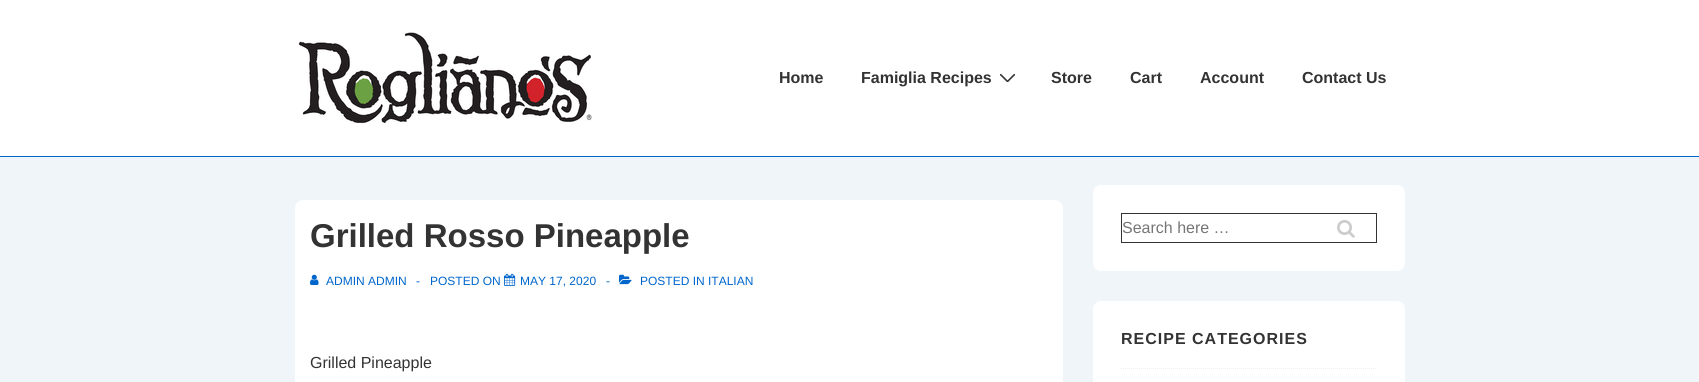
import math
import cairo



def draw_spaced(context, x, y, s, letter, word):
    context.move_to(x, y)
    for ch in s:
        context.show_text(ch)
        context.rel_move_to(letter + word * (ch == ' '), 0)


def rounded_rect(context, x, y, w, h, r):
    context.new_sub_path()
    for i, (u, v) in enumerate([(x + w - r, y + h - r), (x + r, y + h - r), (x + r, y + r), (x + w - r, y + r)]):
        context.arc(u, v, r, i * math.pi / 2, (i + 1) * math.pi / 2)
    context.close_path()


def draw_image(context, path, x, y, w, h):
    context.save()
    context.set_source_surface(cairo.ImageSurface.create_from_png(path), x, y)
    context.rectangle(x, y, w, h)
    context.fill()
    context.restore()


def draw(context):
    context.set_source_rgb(240 / 255, 245 / 255, 250 / 255)
    context.paint()
    context.set_source_rgb(1, 1, 1)
    context.rectangle(0, 0, 1699, 156)
    context.fill()
    context.set_source_rgb(0, 102 / 255, 204 / 255)
    context.rectangle(0, 156, 1699, 1)
    context.fill()
    draw_image(context, "images/1.png", 298, 32, 294, 92)
    context.save()
    context.rectangle(1000, 74, 15, 8)
    context.clip()
    context.new_path()
    context.move_to(1000.5, 74.5)
    context.line_to(1007.5, 81.5)
    context.line_to(1014.5, 74.5)
    context.set_source_rgb(51 / 255, 51 / 255, 51 / 255)
    context.set_line_width(1.6)
    context.set_line_cap(cairo.LineCap.ROUND)
    context.stroke()
    context.restore()
    context.set_source_rgb(1, 1, 1)
    rounded_rect(context, 295, 200, 768, 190, 8)
    context.fill()
    draw_image(context, "images/2.png", 310, 274, 9, 11)
    draw_image(context, "images/3.png", 504, 273, 12, 13)
    draw_image(context, "images/4.png", 619, 274, 13, 11)
    rounded_rect(context, 1093, 185, 312, 86, 8)
    context.fill()
    context.rectangle(1121.5, 213.5, 255, 29)
    context.set_source_rgb(51 / 255, 51 / 255, 51 / 255)
    context.set_line_width(1)
    context.stroke()
    draw_image(context, "images/5.png", 1337, 220, 18, 18)
    context.set_source_rgb(1, 1, 1)
    rounded_rect(context, 1093, 301, 312, 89, 8)
    context.fill()
    context.new_path()
    context.move_to(1121, 368.5)
    context.line_to(1377, 368.5)
    context.set_source_rgb(238 / 255, 238 / 255, 238 / 255)
    context.set_dash([1, 1])
    context.stroke()
    context.select_font_face("Liberation Sans", cairo.FontSlant.NORMAL, cairo.FontWeight.BOLD)
    context.set_font_size(16)
    context.set_source_rgb(51 / 255, 51 / 255, 51 / 255)
    context.move_to(779, 83)
    context.show_text("Home")
    context.move_to(861, 83)
    context.show_text("Famiglia Recipes")
    context.move_to(1051, 83)
    context.show_text("Store")
    context.move_to(1130, 83)
    context.show_text("Cart")
    context.move_to(1200, 83)
    context.show_text("Account")
    context.move_to(1302, 83)
    context.show_text("Contact Us")
    context.set_font_size(33)
    context.move_to(310, 247)
    context.show_text("Grilled Rosso Pineapple")
    context.select_font_face("Liberation Sans")
    context.set_font_size(12)
    context.set_source_rgb(0, 102 / 255, 204 / 255)
    context.move_to(326, 285)
    context.show_text("ADMIN ADMIN")
    context.move_to(416, 285)
    context.show_text("-")
    context.move_to(430, 285)
    context.show_text("POSTED ON")
    context.move_to(520, 285)
    context.show_text("MAY 17, 2020")
    context.move_to(606, 285)
    context.show_text("-")
    context.move_to(640, 285)
    context.show_text("POSTED IN ITALIAN")
    context.set_font_size(16)
    context.set_source_rgb(51 / 255, 51 / 255, 51 / 255)
    context.move_to(310, 368)
    context.show_text("Grilled Pineapple")
    context.set_source_rgb(117 / 255, 117 / 255, 117 / 255)
    context.move_to(1122, 233)
    context.show_text("Search here …")
    context.select_font_face("Liberation Sans", cairo.FontSlant.NORMAL, cairo.FontWeight.BOLD)
    context.set_source_rgb(51 / 255, 51 / 255, 51 / 255)
    draw_spaced(context, 1121, 344, "RECIPE CATEGORIES", 1, 0)


surface = cairo.ImageSurface(cairo.Format.RGB24, 1699, 382)
context = cairo.Context(surface)
options = cairo.FontOptions()
options.set_hint_metrics(cairo.HintMetrics.OFF)
options.set_hint_style(cairo.HintStyle.NONE)
context.set_font_options(options)
context.set_miter_limit(4)
draw(context)
surface.write_to_png("out.png")
